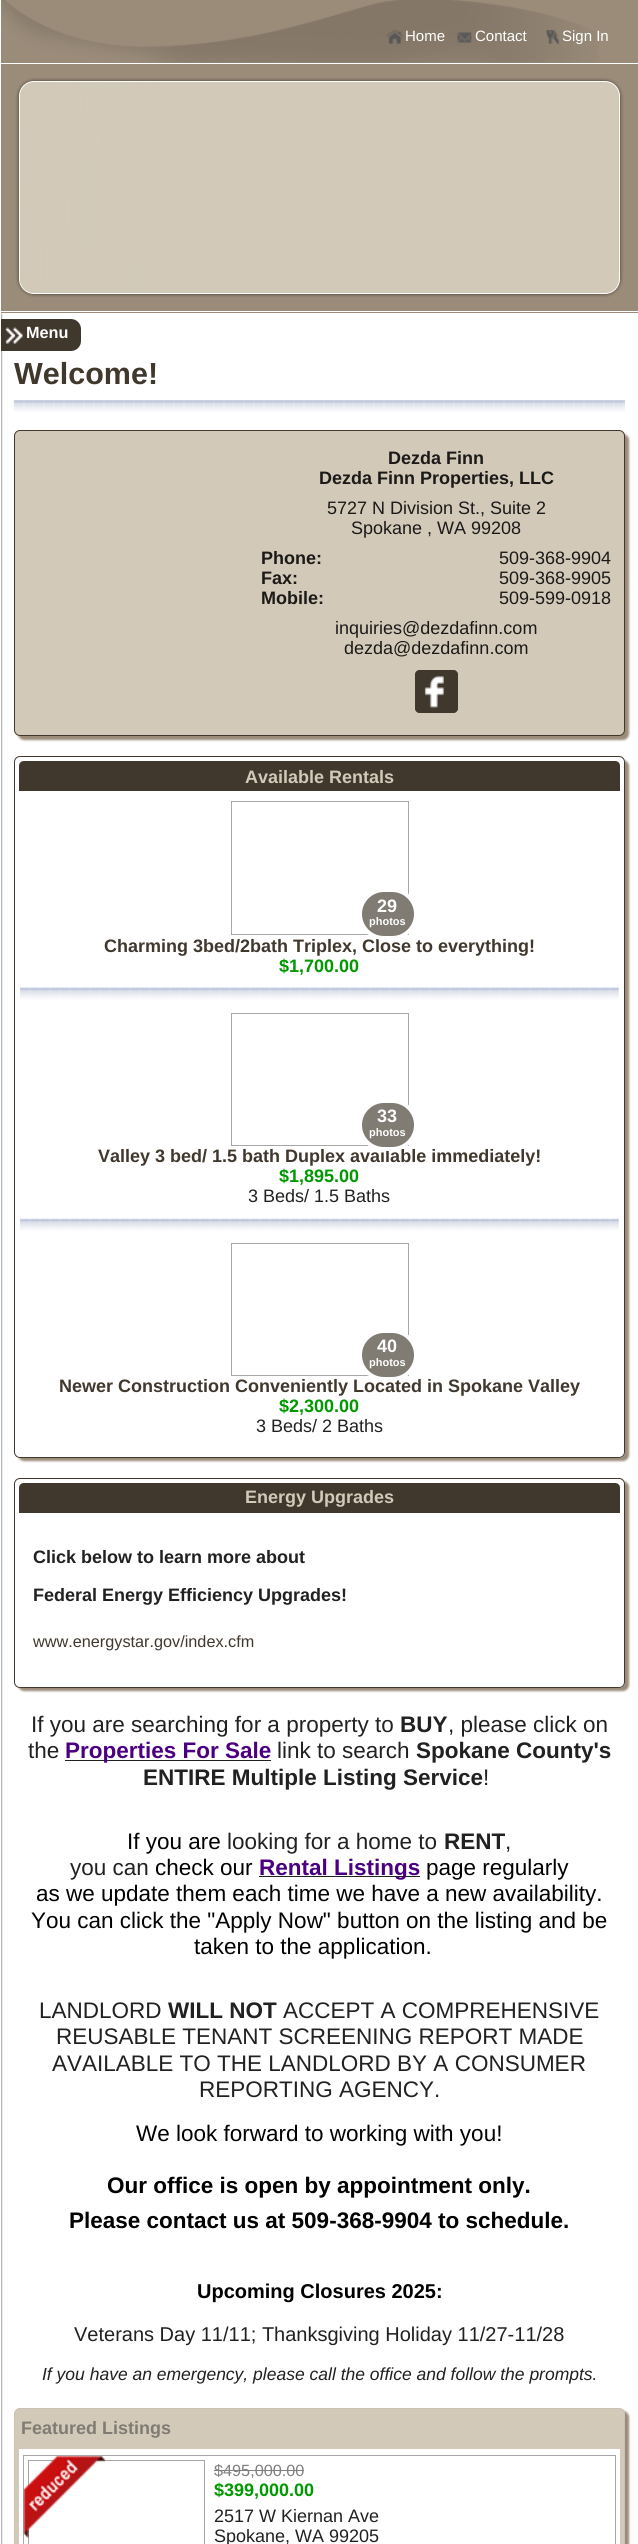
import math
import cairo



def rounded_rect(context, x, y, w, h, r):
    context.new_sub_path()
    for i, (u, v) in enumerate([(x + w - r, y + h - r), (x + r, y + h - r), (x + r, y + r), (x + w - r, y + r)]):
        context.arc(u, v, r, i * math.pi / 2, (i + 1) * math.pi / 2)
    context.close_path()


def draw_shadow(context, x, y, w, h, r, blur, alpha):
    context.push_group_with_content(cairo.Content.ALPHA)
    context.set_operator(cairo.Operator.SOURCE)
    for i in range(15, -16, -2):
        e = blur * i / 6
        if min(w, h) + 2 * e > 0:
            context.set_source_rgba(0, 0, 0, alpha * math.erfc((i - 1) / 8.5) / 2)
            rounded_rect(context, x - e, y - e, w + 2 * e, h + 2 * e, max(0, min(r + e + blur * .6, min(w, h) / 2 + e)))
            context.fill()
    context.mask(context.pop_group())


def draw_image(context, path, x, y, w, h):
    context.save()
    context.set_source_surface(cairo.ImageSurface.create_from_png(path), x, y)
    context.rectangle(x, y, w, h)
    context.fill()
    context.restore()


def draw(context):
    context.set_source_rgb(155 / 255, 140 / 255, 122 / 255)
    context.paint()
    context.set_source_rgb(1, 1, 1)
    context.rectangle(0, 0, 1, 2544)
    context.fill()
    context.rectangle(1, 311, 637, 1)
    context.fill()
    draw_image(context, "images/1.png", 1, 0, 598, 63)
    context.rectangle(1, 63, 637, 1)
    context.fill()
    draw_image(context, "images/2.png", 386, 30, 18, 14)
    draw_image(context, "images/3.png", 457, 32, 15, 11)
    draw_image(context, "images/4.png", 546, 30, 13, 14)
    context.set_source_rgb(64 / 255, 56 / 255, 45 / 255)
    draw_shadow(context, 19, 81, 601, 213, 15, 2, 1)
    context.set_source_rgb(210 / 255, 201 / 255, 185 / 255)
    rounded_rect(context, 19.5, 81.5, 600, 212, 14.5)
    context.fill_preserve()
    context.set_source_rgb(1, 1, 1)
    context.set_line_width(1)
    context.stroke()
    gradient = cairo.LinearGradient(-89, 188, 619, 187)
    gradient.add_color_stop_rgba(0.12, 210 / 255, 201 / 255, 185 / 255, 1)
    gradient.add_color_stop_rgba(0.35, 210 / 255, 201 / 255, 185 / 255, 0)
    context.set_source(gradient)
    rounded_rect(context, 20, 83, 599, 210, 14)
    context.fill()
    context.set_source_rgb(1, 1, 1)
    context.rectangle(1, 313, 637, 2231)
    context.fill()
    context.save()
    context.rectangle(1, 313, 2, 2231)
    context.clip()
    context.set_source_rgb(0, 0, 0)
    draw_shadow(context, -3, 314, 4, 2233, 0, 1, 0.87)
    context.restore()
    context.set_source_rgb(64 / 255, 56 / 255, 45 / 255)
    context.new_path()
    context.move_to(1, 319)
    context.line_to(71, 319)
    context.curve_to(76.5, 319, 81, 323.5, 81, 329)
    context.line_to(81, 341)
    context.curve_to(81, 346.5, 76.5, 351, 71, 351)
    context.line_to(1, 351)
    context.close_path()
    context.fill()
    draw_image(context, "images/5.png", 5, 327, 18, 17)
    draw_image(context, "images/6.png", 13, 400, 612, 12)
    context.set_source_rgb(155 / 255, 140 / 255, 122 / 255)
    draw_shadow(context, 18, 434, 611, 306, 6, 1, 1)
    context.set_source_rgb(210 / 255, 201 / 255, 185 / 255)
    rounded_rect(context, 14.5, 430.5, 610, 305, 5.5)
    context.fill_preserve()
    context.set_source_rgb(64 / 255, 56 / 255, 45 / 255)
    context.stroke()
    rounded_rect(context, 415, 670, 43, 43, 5)
    context.fill()
    draw_image(context, "images/7.png", 424, 676, 20, 32)
    rounded_rect(context, 415.5, 670.5, 42, 42, 4.5)
    context.stroke()
    context.save()
    context.set_fill_rule(cairo.FillRule.EVEN_ODD)
    context.new_path()
    context.move_to(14, 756)
    context.line_to(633, 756)
    context.line_to(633, 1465)
    context.line_to(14, 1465)
    context.close_path()
    context.move_to(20, 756)
    context.line_to(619, 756)
    context.curve_to(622.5, 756, 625, 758.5, 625, 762)
    context.line_to(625, 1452)
    context.curve_to(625, 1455.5, 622.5, 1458, 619, 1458)
    context.line_to(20, 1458)
    context.curve_to(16.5, 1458, 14, 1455.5, 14, 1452)
    context.line_to(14, 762)
    context.curve_to(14, 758.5, 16.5, 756, 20, 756)
    context.close_path()
    context.clip()
    context.set_source_rgb(155 / 255, 140 / 255, 122 / 255)
    draw_shadow(context, 18, 760, 611, 701, 6, 1, 1)
    context.restore()
    rounded_rect(context, 14.5, 756.5, 610, 701, 5.5)
    context.stroke()
    context.new_path()
    context.move_to(24, 761)
    context.line_to(615, 761)
    context.curve_to(618, 761, 620, 763, 620, 766)
    context.line_to(620, 791)
    context.line_to(19, 791)
    context.line_to(19, 766)
    context.curve_to(19, 763, 21, 761, 24, 761)
    context.close_path()
    context.fill()
    context.rectangle(231.5, 801.5, 177, 133)
    context.set_source_rgb(167 / 255, 167 / 255, 167 / 255)
    context.stroke()
    draw_image(context, "images/8.png", 20, 987, 599, 13)
    context.rectangle(231.5, 1013.5, 177, 132)
    context.stroke()
    draw_image(context, "images/9.png", 20, 1218, 599, 13)
    context.rectangle(231.5, 1243.5, 177, 132)
    context.stroke()
    context.save()
    context.set_fill_rule(cairo.FillRule.EVEN_ODD)
    context.new_path()
    context.move_to(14, 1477)
    context.line_to(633, 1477)
    context.line_to(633, 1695)
    context.line_to(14, 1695)
    context.close_path()
    context.move_to(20, 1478)
    context.line_to(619, 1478)
    context.curve_to(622.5, 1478, 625, 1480.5, 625, 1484)
    context.line_to(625, 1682)
    context.curve_to(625, 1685.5, 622.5, 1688, 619, 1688)
    context.line_to(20, 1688)
    context.curve_to(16.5, 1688, 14, 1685.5, 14, 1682)
    context.line_to(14, 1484)
    context.curve_to(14, 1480.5, 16.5, 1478, 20, 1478)
    context.close_path()
    context.clip()
    context.set_source_rgb(155 / 255, 140 / 255, 122 / 255)
    draw_shadow(context, 18, 1481, 611, 210, 6, 1, 1)
    context.restore()
    rounded_rect(context, 14.5, 1478.5, 610, 209, 5.5)
    context.set_source_rgb(64 / 255, 56 / 255, 45 / 255)
    context.stroke()
    context.new_path()
    context.move_to(24, 1483)
    context.line_to(615, 1483)
    context.curve_to(618, 1483, 620, 1485, 620, 1488)
    context.line_to(620, 1513)
    context.line_to(19, 1513)
    context.line_to(19, 1488)
    context.curve_to(19, 1485, 21, 1483, 24, 1483)
    context.close_path()
    context.fill()
    context.set_source_rgb(33 / 255, 33 / 255, 33 / 255)
    context.rectangle(65, 1760, 206, 1)
    context.fill()
    context.rectangle(259, 1876, 161, 1)
    context.fill()
    context.set_source_rgb(155 / 255, 140 / 255, 122 / 255)
    draw_shadow(context, 18, 2411, 611, 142, 6, 1, 1)
    context.set_source_rgb(210 / 255, 201 / 255, 185 / 255)
    rounded_rect(context, 14.5, 2408.5, 610, 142, 5.5)
    context.fill_preserve()
    context.set_source_rgb(201 / 255, 194 / 255, 181 / 255)
    context.stroke()
    context.set_source_rgb(1, 1, 1)
    context.rectangle(19, 2449, 601, 95)
    context.fill()
    context.rectangle(23.5, 2455.5, 592, 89)
    context.set_source_rgb(167 / 255, 167 / 255, 167 / 255)
    context.stroke()
    context.rectangle(28.5, 2460.5, 176, 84)
    context.stroke()
    draw_image(context, "images/10.png", 23, 2456, 83, 82)
    context.set_source_rgb(128 / 255, 128 / 255, 128 / 255)
    context.rectangle(214, 2470, 90, 1)
    context.fill()
    context.select_font_face("Liberation Sans")
    context.set_font_size(15)
    context.set_source_rgb(1, 1, 1)
    context.move_to(405, 41)
    context.show_text("Home")
    context.move_to(475, 41)
    context.show_text("Contact")
    context.move_to(562, 41)
    context.show_text("Sign In")
    context.select_font_face("Liberation Sans", cairo.FontSlant.NORMAL, cairo.FontWeight.BOLD)
    context.set_font_size(16.25)
    context.move_to(26, 338)
    context.show_text("Menu")
    context.set_font_size(30.5)
    context.set_source_rgb(64 / 255, 56 / 255, 45 / 255)
    context.move_to(14, 384)
    context.show_text("Welcome!")
    context.set_font_size(18)
    context.set_source_rgb(27 / 255, 26 / 255, 24 / 255)
    context.move_to(388, 464)
    context.show_text("Dezda Finn")
    context.move_to(319, 484)
    context.show_text("Dezda Finn Properties, LLC")
    context.select_font_face("Liberation Sans")
    context.move_to(327, 514)
    context.show_text("5727 N Division St., Suite 2")
    context.move_to(351, 534)
    context.show_text("Spokane , WA 99208")
    context.select_font_face("Liberation Sans", cairo.FontSlant.NORMAL, cairo.FontWeight.BOLD)
    context.move_to(261, 564)
    context.show_text("Phone:")
    context.select_font_face("Liberation Sans")
    context.move_to(499, 564)
    context.show_text("509-368-9904")
    context.select_font_face("Liberation Sans", cairo.FontSlant.NORMAL, cairo.FontWeight.BOLD)
    context.move_to(261, 584)
    context.show_text("Fax:")
    context.select_font_face("Liberation Sans")
    context.move_to(499, 584)
    context.show_text("509-368-9905")
    context.select_font_face("Liberation Sans", cairo.FontSlant.NORMAL, cairo.FontWeight.BOLD)
    context.move_to(261, 604)
    context.show_text("Mobile:")
    context.select_font_face("Liberation Sans")
    context.move_to(499, 604)
    context.show_text("509-599-0918")
    context.move_to(335, 634)
    context.show_text("inquiries@dezdafinn.com")
    context.move_to(344, 654)
    context.show_text("dezda@dezdafinn.com")
    context.select_font_face("Liberation Sans", cairo.FontSlant.NORMAL, cairo.FontWeight.BOLD)
    context.set_source_rgb(210 / 255, 201 / 255, 185 / 255)
    context.move_to(245, 783)
    context.show_text("Available Rentals")
    context.set_source_rgb(64 / 255, 56 / 255, 45 / 255)
    context.move_to(104, 952)
    context.show_text("Charming 3bed/2bath Triplex, Close to everything!")
    context.set_source_rgb(128 / 255, 123 / 255, 115 / 255)
    rounded_rect(context, 360, 890, 56, 48, 24)
    context.fill_preserve()
    context.set_source_rgb(1, 1, 1)
    context.set_line_width(4)
    context.stroke()
    context.set_font_size(11)
    context.move_to(369, 925)
    context.show_text("photos")
    context.set_font_size(18)
    context.move_to(377, 912)
    context.show_text("29")
    context.set_source_rgb(0, 153 / 255, 0)
    context.move_to(279, 972)
    context.show_text("$1,700.00")
    context.set_source_rgb(64 / 255, 56 / 255, 45 / 255)
    context.move_to(98, 1162)
    context.show_text("Valley 3 bed/ 1.5 bath Duplex available immediately!")
    context.set_source_rgb(128 / 255, 123 / 255, 115 / 255)
    rounded_rect(context, 360, 1101, 56, 48, 24)
    context.fill_preserve()
    context.set_source_rgb(1, 1, 1)
    context.stroke()
    context.set_font_size(11)
    context.move_to(369, 1136)
    context.show_text("photos")
    context.set_font_size(18)
    context.move_to(377, 1122)
    context.show_text("33")
    context.set_source_rgb(0, 153 / 255, 0)
    context.move_to(279, 1182)
    context.show_text("$1,895.00")
    context.select_font_face("Liberation Sans")
    context.set_source_rgb(33 / 255, 33 / 255, 33 / 255)
    context.move_to(248, 1202)
    context.show_text("3 Beds/ 1.5 Baths")
    context.select_font_face("Liberation Sans", cairo.FontSlant.NORMAL, cairo.FontWeight.BOLD)
    context.set_source_rgb(64 / 255, 56 / 255, 45 / 255)
    context.move_to(59, 1392)
    context.show_text("Newer Construction Conveniently Located in Spokane Valley")
    context.set_source_rgb(128 / 255, 123 / 255, 115 / 255)
    rounded_rect(context, 360, 1331, 56, 48, 24)
    context.fill_preserve()
    context.set_source_rgb(1, 1, 1)
    context.stroke()
    context.set_font_size(11)
    context.move_to(369, 1366)
    context.show_text("photos")
    context.set_font_size(18)
    context.move_to(377, 1352)
    context.show_text("40")
    context.set_source_rgb(0, 153 / 255, 0)
    context.move_to(279, 1412)
    context.show_text("$2,300.00")
    context.select_font_face("Liberation Sans")
    context.set_source_rgb(33 / 255, 33 / 255, 33 / 255)
    context.move_to(256, 1432)
    context.show_text("3 Beds/ 2 Baths")
    context.select_font_face("Liberation Sans", cairo.FontSlant.NORMAL, cairo.FontWeight.BOLD)
    context.set_source_rgb(210 / 255, 201 / 255, 185 / 255)
    context.move_to(245, 1503)
    context.show_text("Energy Upgrades")
    context.set_source_rgb(33 / 255, 33 / 255, 33 / 255)
    context.move_to(33, 1563)
    context.show_text("Click below to learn more about")
    context.move_to(33, 1601)
    context.show_text("Federal Energy Efficiency Upgrades!")
    context.select_font_face("Liberation Sans")
    context.set_font_size(16.25)
    context.set_source_rgb(64 / 255, 56 / 255, 45 / 255)
    context.move_to(33, 1647)
    context.show_text("www.energystar.gov/index.cfm")
    context.set_font_size(22.5)
    context.set_source_rgb(33 / 255, 33 / 255, 33 / 255)
    context.move_to(31, 1732)
    context.show_text("If you are searching for a property to")
    context.select_font_face("Liberation Sans", cairo.FontSlant.NORMAL, cairo.FontWeight.BOLD)
    context.move_to(400, 1732)
    context.show_text("BUY")
    context.select_font_face("Liberation Sans")
    context.move_to(448, 1732)
    context.show_text(", please click on")
    context.move_to(28, 1758)
    context.show_text("the")
    context.select_font_face("Liberation Sans", cairo.FontSlant.NORMAL, cairo.FontWeight.BOLD)
    context.set_source_rgb(75 / 255, 0, 130 / 255)
    context.move_to(65, 1758)
    context.show_text("Properties For Sale")
    context.select_font_face("Liberation Sans")
    context.set_source_rgb(33 / 255, 33 / 255, 33 / 255)
    context.move_to(277, 1758)
    context.show_text("link to search")
    context.select_font_face("Liberation Sans", cairo.FontSlant.NORMAL, cairo.FontWeight.BOLD)
    context.move_to(416, 1758)
    context.show_text("Spokane County's")
    context.move_to(143, 1785)
    context.show_text("ENTIRE Multiple Listing Service")
    context.select_font_face("Liberation Sans")
    context.move_to(483, 1785)
    context.show_text("!")
    context.set_source_rgb(0, 0, 0)
    context.move_to(127, 1849)
    context.show_text("If you are")
    context.set_source_rgb(33 / 255, 33 / 255, 33 / 255)
    context.move_to(227, 1849)
    context.show_text("looking for a home to")
    context.select_font_face("Liberation Sans", cairo.FontSlant.NORMAL, cairo.FontWeight.BOLD)
    context.move_to(444, 1849)
    context.show_text("RENT")
    context.select_font_face("Liberation Sans")
    context.move_to(505, 1849)
    context.show_text(",")
    context.move_to(70, 1875)
    context.show_text("you can")
    context.set_source_rgb(0, 0, 0)
    context.move_to(155, 1875)
    context.show_text("check our")
    context.select_font_face("Liberation Sans", cairo.FontSlant.NORMAL, cairo.FontWeight.BOLD)
    context.set_source_rgb(75 / 255, 0, 130 / 255)
    context.move_to(259, 1875)
    context.show_text("Rental Listings")
    context.select_font_face("Liberation Sans")
    context.set_source_rgb(0, 0, 0)
    context.move_to(426, 1875)
    context.show_text("page regularly")
    context.move_to(36, 1901)
    context.show_text("as we update them each time we have a new availability.")
    context.move_to(31, 1928)
    context.show_text("You can click the \"Apply Now\" button on the listing and be")
    context.move_to(194, 1954)
    context.show_text("taken to the application.")
    context.set_source_rgb(33 / 255, 33 / 255, 33 / 255)
    context.move_to(39, 2018)
    context.show_text("LANDLORD")
    context.select_font_face("Liberation Sans", cairo.FontSlant.NORMAL, cairo.FontWeight.BOLD)
    context.move_to(168, 2018)
    context.show_text("WILL NOT")
    context.select_font_face("Liberation Sans")
    context.move_to(283, 2018)
    context.show_text("ACCEPT A COMPREHENSIVE")
    context.move_to(56, 2044)
    context.show_text("REUSABLE TENANT SCREENING REPORT MADE")
    context.move_to(52, 2071)
    context.show_text("AVAILABLE TO THE LANDLORD BY A CONSUMER")
    context.move_to(199, 2097)
    context.show_text("REPORTING AGENCY.")
    context.set_source_rgb(0, 0, 0)
    context.move_to(136, 2141)
    context.show_text("We look forward to working with you!")
    context.select_font_face("Liberation Sans", cairo.FontSlant.NORMAL, cairo.FontWeight.BOLD)
    context.move_to(107, 2193)
    context.show_text("Our office is open by appointment only.")
    context.move_to(69, 2228)
    context.show_text("Please contact us at 509-368-9904 to schedule.")
    context.set_font_size(20)
    context.move_to(197, 2298)
    context.show_text("Upcoming Closures 2025:")
    context.select_font_face("Liberation Sans")
    context.set_source_rgb(33 / 255, 33 / 255, 33 / 255)
    context.move_to(74, 2341)
    context.show_text("Veterans Day 11/11; Thanksgiving Holiday 11/27-11/28")
    context.select_font_face("Liberation Sans", cairo.FontSlant.ITALIC)
    context.set_font_size(17.5)
    context.move_to(42, 2380)
    context.show_text("If you have an emergency, please call the office and follow the prompts.")
    context.select_font_face("Liberation Sans", cairo.FontSlant.NORMAL, cairo.FontWeight.BOLD)
    context.set_font_size(18)
    context.set_source_rgb(128 / 255, 123 / 255, 115 / 255)
    context.move_to(21, 2434)
    context.show_text("Featured Listings")
    context.select_font_face("Liberation Sans")
    context.set_font_size(16.25)
    context.set_source_rgb(128 / 255, 128 / 255, 128 / 255)
    context.move_to(214, 2476)
    context.show_text("$495,000.00")
    context.select_font_face("Liberation Sans", cairo.FontSlant.NORMAL, cairo.FontWeight.BOLD)
    context.set_font_size(18)
    context.set_source_rgb(0, 153 / 255, 0)
    context.move_to(214, 2496)
    context.show_text("$399,000.00")
    context.select_font_face("Liberation Sans")
    context.set_source_rgb(33 / 255, 33 / 255, 33 / 255)
    context.move_to(214, 2522)
    context.show_text("2517 W Kiernan Ave")
    context.move_to(214, 2542)
    context.show_text("Spokane, WA 99205")


surface = cairo.ImageSurface(cairo.Format.RGB24, 638, 2544)
context = cairo.Context(surface)
options = cairo.FontOptions()
options.set_hint_metrics(cairo.HintMetrics.OFF)
options.set_hint_style(cairo.HintStyle.NONE)
context.set_font_options(options)
context.set_miter_limit(4)
draw(context)
surface.write_to_png("out.png")
